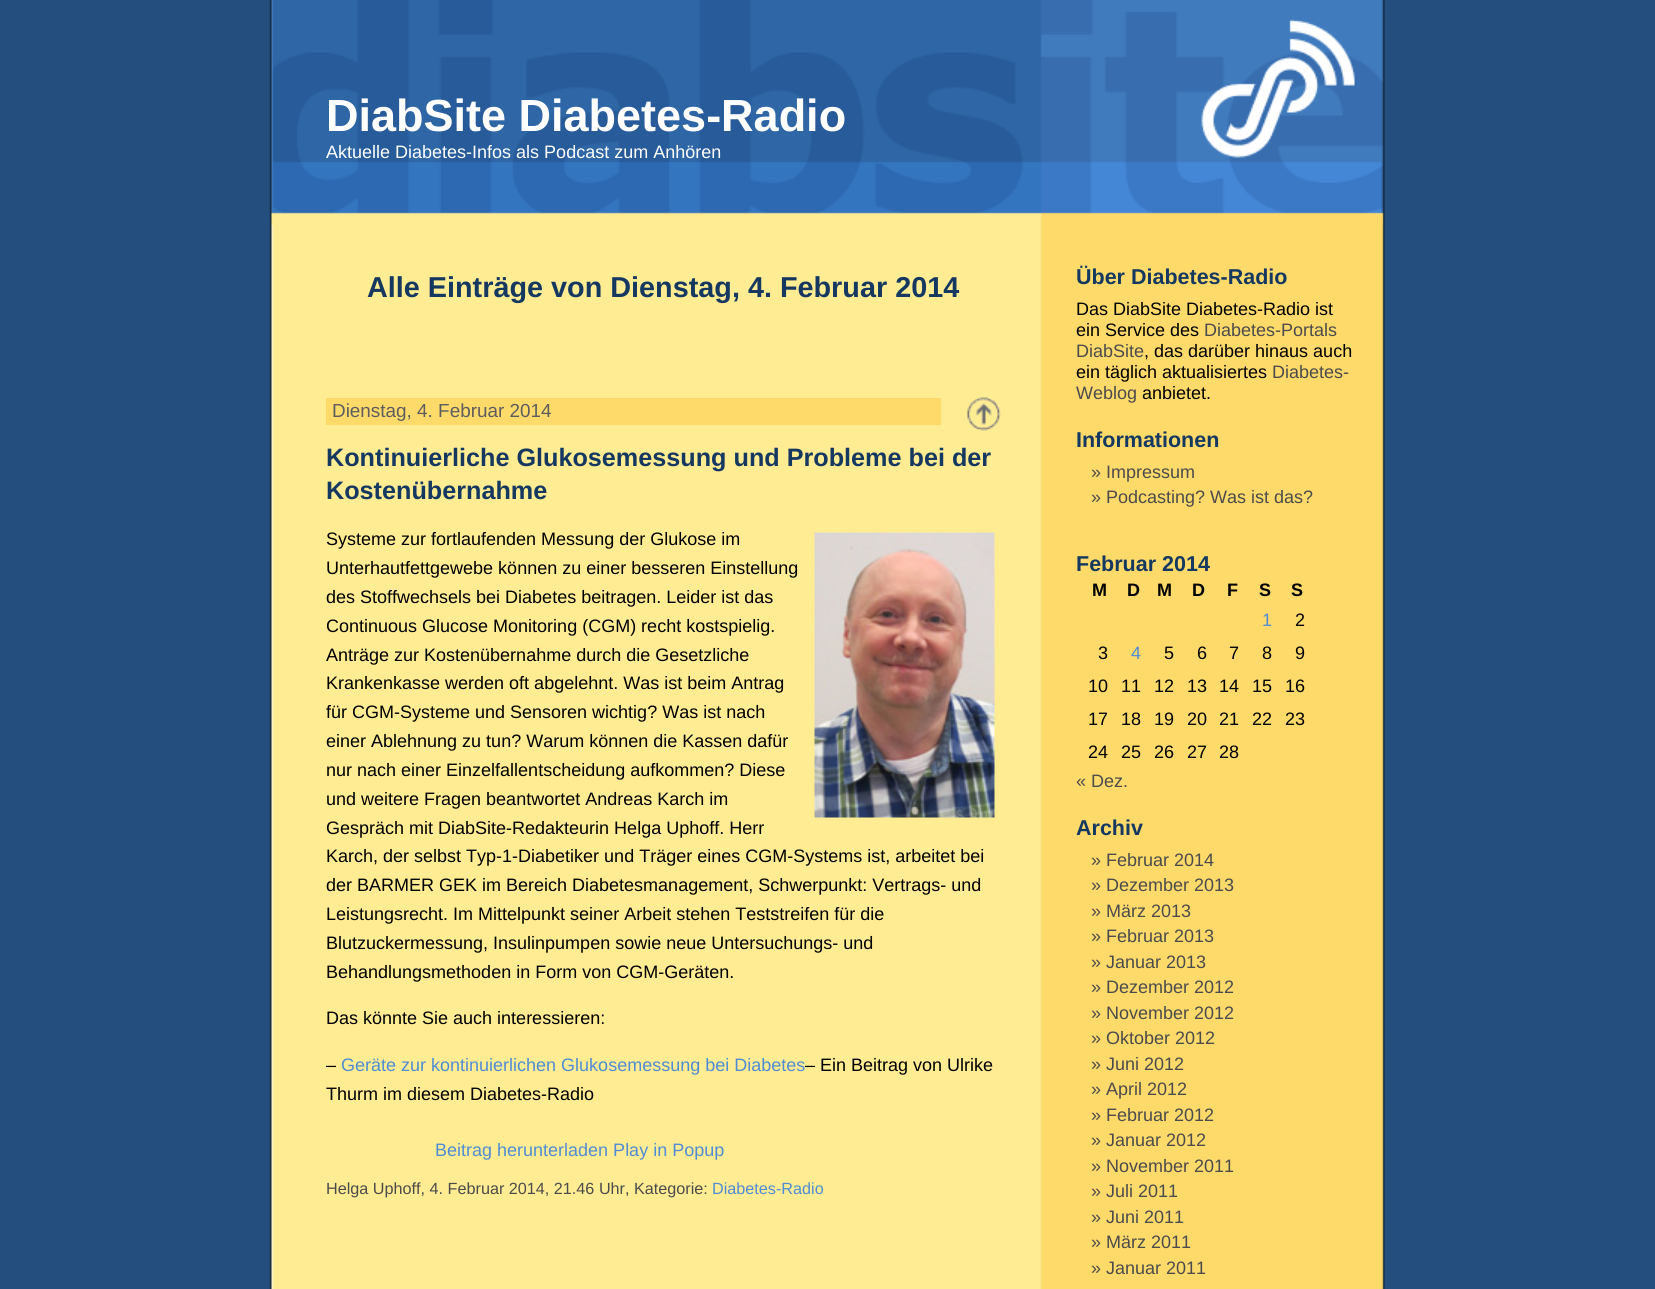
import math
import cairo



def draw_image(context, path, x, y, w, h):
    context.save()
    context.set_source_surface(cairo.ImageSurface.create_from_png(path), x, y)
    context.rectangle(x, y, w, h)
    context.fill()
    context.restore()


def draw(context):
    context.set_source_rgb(36 / 255, 78 / 255, 126 / 255)
    context.paint()
    draw_image(context, "images/1.png", 269, 0, 1116, 1289)
    draw_image(context, "images/2.png", 271, 0, 1113, 225)
    draw_image(context, "images/3.png", 1201, 19, 154, 139)
    context.set_source_rgb(254 / 255, 218 / 255, 107 / 255)
    context.rectangle(326, 398, 615, 27)
    context.fill()
    draw_image(context, "images/4.png", 967, 397, 34, 34)
    draw_image(context, "images/5.png", 814, 532, 181, 286)
    context.select_font_face("Liberation Sans", cairo.FontSlant.NORMAL, cairo.FontWeight.BOLD)
    context.set_font_size(45)
    context.set_source_rgb(1, 1, 1)
    context.move_to(326, 131)
    context.show_text("DiabSite Diabetes-Radio")
    context.select_font_face("Liberation Sans")
    context.set_font_size(18)
    context.move_to(326, 158)
    context.show_text("Aktuelle Diabetes-Infos als Podcast zum Anhören")
    context.select_font_face("Liberation Sans", cairo.FontSlant.NORMAL, cairo.FontWeight.BOLD)
    context.set_font_size(28.8)
    context.set_source_rgb(21 / 255, 56 / 255, 96 / 255)
    context.move_to(367, 297)
    context.show_text("Alle Einträge von Dienstag, 4. Februar 2014")
    context.select_font_face("Liberation Sans")
    context.set_font_size(18.9)
    context.set_source_rgb(93 / 255, 93 / 255, 93 / 255)
    context.move_to(332, 417)
    context.show_text("Dienstag, 4. Februar 2014")
    context.select_font_face("Liberation Sans", cairo.FontSlant.NORMAL, cairo.FontWeight.BOLD)
    context.set_font_size(25.2)
    context.set_source_rgb(21 / 255, 56 / 255, 96 / 255)
    context.move_to(326, 466)
    context.show_text("Kontinuierliche Glukosemessung und Probleme bei der")
    context.move_to(326, 499)
    context.show_text("Kostenübernahme")
    context.select_font_face("Liberation Sans")
    context.set_font_size(18)
    context.set_source_rgb(0, 0, 0)
    context.move_to(326, 545)
    context.show_text("Systeme zur fortlaufenden Messung der Glukose im")
    context.move_to(326, 574)
    context.show_text("Unterhautfettgewebe können zu einer besseren Einstellung")
    context.move_to(326, 603)
    context.show_text("des Stoffwechsels bei Diabetes beitragen. Leider ist das")
    context.move_to(326, 632)
    context.show_text("Continuous Glucose Monitoring (CGM) recht kostspielig.")
    context.move_to(326, 661)
    context.show_text("Anträge zur Kostenübernahme durch die Gesetzliche")
    context.move_to(326, 689)
    context.show_text("Krankenkasse werden oft abgelehnt. Was ist beim Antrag")
    context.move_to(326, 718)
    context.show_text("für CGM-Systeme und Sensoren wichtig? Was ist nach")
    context.move_to(326, 747)
    context.show_text("einer Ablehnung zu tun? Warum können die Kassen dafür")
    context.move_to(326, 776)
    context.show_text("nur nach einer Einzelfallentscheidung aufkommen? Diese")
    context.move_to(326, 805)
    context.show_text("und weitere Fragen beantwortet Andreas Karch im")
    context.move_to(326, 834)
    context.show_text("Gespräch mit DiabSite-Redakteurin Helga Uphoff. Herr")
    context.move_to(326, 862)
    context.show_text("Karch, der selbst Typ-1-Diabetiker und Träger eines CGM-Systems ist, arbeitet bei")
    context.move_to(326, 891)
    context.show_text("der BARMER GEK im Bereich Diabetesmanagement, Schwerpunkt: Vertrags- und")
    context.move_to(326, 920)
    context.show_text("Leistungsrecht. Im Mittelpunkt seiner Arbeit stehen Teststreifen für die")
    context.move_to(326, 949)
    context.show_text("Blutzuckermessung, Insulinpumpen sowie neue Untersuchungs- und")
    context.move_to(326, 978)
    context.show_text("Behandlungsmethoden in Form von CGM-Geräten.")
    context.move_to(326, 1024)
    context.show_text("Das könnte Sie auch interessieren:")
    context.move_to(326, 1071)
    context.show_text("–")
    context.set_source_rgb(80 / 255, 140 / 255, 211 / 255)
    context.move_to(341, 1071)
    context.show_text("Geräte zur kontinuierlichen Glukosemessung bei Diabetes")
    context.set_source_rgb(0, 0, 0)
    context.move_to(805, 1071)
    context.show_text("– Ein Beitrag von Ulrike")
    context.move_to(326, 1100)
    context.show_text("Thurm im diesem Diabetes-Radio")
    context.set_source_rgb(80 / 255, 140 / 255, 211 / 255)
    context.move_to(435, 1156)
    context.show_text("Beitrag herunterladen Play in Popup")
    context.set_font_size(16.2)
    context.set_source_rgb(75 / 255, 75 / 255, 75 / 255)
    context.move_to(326, 1194)
    context.show_text("Helga Uphoff, 4. Februar 2014, 21.46 Uhr, Kategorie:")
    context.set_source_rgb(80 / 255, 140 / 255, 211 / 255)
    context.move_to(712, 1194)
    context.show_text("Diabetes-Radio")
    context.select_font_face("Liberation Sans", cairo.FontSlant.NORMAL, cairo.FontWeight.BOLD)
    context.set_font_size(21.5)
    context.set_source_rgb(21 / 255, 56 / 255, 96 / 255)
    context.move_to(1076, 284)
    context.show_text("Über Diabetes-Radio")
    context.select_font_face("Liberation Sans")
    context.set_font_size(18)
    context.set_source_rgb(0, 0, 0)
    context.move_to(1076, 315)
    context.show_text("Das DiabSite Diabetes-Radio ist")
    context.move_to(1076, 336)
    context.show_text("ein Service des")
    context.set_source_rgb(75 / 255, 75 / 255, 75 / 255)
    context.move_to(1204, 336)
    context.show_text("Diabetes-Portals")
    context.move_to(1076, 357)
    context.show_text("DiabSite")
    context.set_source_rgb(0, 0, 0)
    context.move_to(1144, 357)
    context.show_text(", das darüber hinaus auch")
    context.move_to(1076, 378)
    context.show_text("ein täglich aktualisiertes")
    context.set_source_rgb(75 / 255, 75 / 255, 75 / 255)
    context.move_to(1272, 378)
    context.show_text("Diabetes-")
    context.move_to(1076, 399)
    context.show_text("Weblog")
    context.set_source_rgb(0, 0, 0)
    context.move_to(1142, 399)
    context.show_text("anbietet.")
    context.select_font_face("Liberation Sans", cairo.FontSlant.NORMAL, cairo.FontWeight.BOLD)
    context.set_font_size(21.5)
    context.set_source_rgb(21 / 255, 56 / 255, 96 / 255)
    context.move_to(1076, 447)
    context.show_text("Informationen")
    context.select_font_face("Liberation Sans")
    context.set_font_size(18)
    context.set_source_rgb(75 / 255, 75 / 255, 75 / 255)
    context.move_to(1091, 478)
    context.show_text("» Impressum")
    context.move_to(1091, 503)
    context.show_text("» Podcasting? Was ist das?")
    context.select_font_face("Liberation Sans", cairo.FontSlant.NORMAL, cairo.FontWeight.BOLD)
    context.set_font_size(21.5)
    context.set_source_rgb(21 / 255, 56 / 255, 96 / 255)
    context.move_to(1076, 571)
    context.show_text("Februar 2014")
    context.set_font_size(18)
    context.set_source_rgb(0, 0, 0)
    context.move_to(1092, 596)
    context.show_text("M")
    context.move_to(1127, 596)
    context.show_text("D")
    context.move_to(1157, 596)
    context.show_text("M")
    context.move_to(1192, 596)
    context.show_text("D")
    context.move_to(1227, 596)
    context.show_text("F")
    context.move_to(1259, 596)
    context.show_text("S")
    context.move_to(1291, 596)
    context.show_text("S")
    context.select_font_face("Liberation Sans")
    context.set_source_rgb(80 / 255, 140 / 255, 211 / 255)
    context.move_to(1262, 626)
    context.show_text("1")
    context.set_source_rgb(0, 0, 0)
    context.move_to(1295, 626)
    context.show_text("2")
    context.move_to(1098, 659)
    context.show_text("3")
    context.set_source_rgb(80 / 255, 140 / 255, 211 / 255)
    context.move_to(1131, 659)
    context.show_text("4")
    context.set_source_rgb(0, 0, 0)
    context.move_to(1164, 659)
    context.show_text("5")
    context.move_to(1197, 659)
    context.show_text("6")
    context.move_to(1229, 659)
    context.show_text("7")
    context.move_to(1262, 659)
    context.show_text("8")
    context.move_to(1295, 659)
    context.show_text("9")
    context.move_to(1088, 692)
    context.show_text("10")
    context.move_to(1121, 692)
    context.show_text("11")
    context.move_to(1154, 692)
    context.show_text("12")
    context.move_to(1187, 692)
    context.show_text("13")
    context.move_to(1219, 692)
    context.show_text("14")
    context.move_to(1252, 692)
    context.show_text("15")
    context.move_to(1285, 692)
    context.show_text("16")
    context.move_to(1088, 725)
    context.show_text("17")
    context.move_to(1121, 725)
    context.show_text("18")
    context.move_to(1154, 725)
    context.show_text("19")
    context.move_to(1187, 725)
    context.show_text("20")
    context.move_to(1219, 725)
    context.show_text("21")
    context.move_to(1252, 725)
    context.show_text("22")
    context.move_to(1285, 725)
    context.show_text("23")
    context.move_to(1088, 758)
    context.show_text("24")
    context.move_to(1121, 758)
    context.show_text("25")
    context.move_to(1154, 758)
    context.show_text("26")
    context.move_to(1187, 758)
    context.show_text("27")
    context.move_to(1219, 758)
    context.show_text("28")
    context.set_source_rgb(75 / 255, 75 / 255, 75 / 255)
    context.move_to(1076, 787)
    context.show_text("« Dez.")
    context.select_font_face("Liberation Sans", cairo.FontSlant.NORMAL, cairo.FontWeight.BOLD)
    context.set_font_size(21.5)
    context.set_source_rgb(21 / 255, 56 / 255, 96 / 255)
    context.move_to(1076, 835)
    context.show_text("Archiv")
    context.select_font_face("Liberation Sans")
    context.set_font_size(18)
    context.set_source_rgb(75 / 255, 75 / 255, 75 / 255)
    context.move_to(1091, 866)
    context.show_text("» Februar 2014")
    context.move_to(1091, 891)
    context.show_text("» Dezember 2013")
    context.move_to(1091, 917)
    context.show_text("» März 2013")
    context.move_to(1091, 942)
    context.show_text("» Februar 2013")
    context.move_to(1091, 968)
    context.show_text("» Januar 2013")
    context.move_to(1091, 993)
    context.show_text("» Dezember 2012")
    context.move_to(1091, 1019)
    context.show_text("» November 2012")
    context.move_to(1091, 1044)
    context.show_text("» Oktober 2012")
    context.move_to(1091, 1070)
    context.show_text("» Juni 2012")
    context.move_to(1091, 1095)
    context.show_text("» April 2012")
    context.move_to(1091, 1121)
    context.show_text("» Februar 2012")
    context.move_to(1091, 1146)
    context.show_text("» Januar 2012")
    context.move_to(1091, 1172)
    context.show_text("» November 2011")
    context.move_to(1091, 1197)
    context.show_text("» Juli 2011")
    context.move_to(1091, 1223)
    context.show_text("» Juni 2011")
    context.move_to(1091, 1248)
    context.show_text("» März 2011")
    context.move_to(1091, 1274)
    context.show_text("» Januar 2011")


surface = cairo.ImageSurface(cairo.Format.RGB24, 1655, 1289)
context = cairo.Context(surface)
options = cairo.FontOptions()
options.set_hint_metrics(cairo.HintMetrics.OFF)
options.set_hint_style(cairo.HintStyle.NONE)
context.set_font_options(options)
context.set_miter_limit(4)
draw(context)
surface.write_to_png("out.png")
